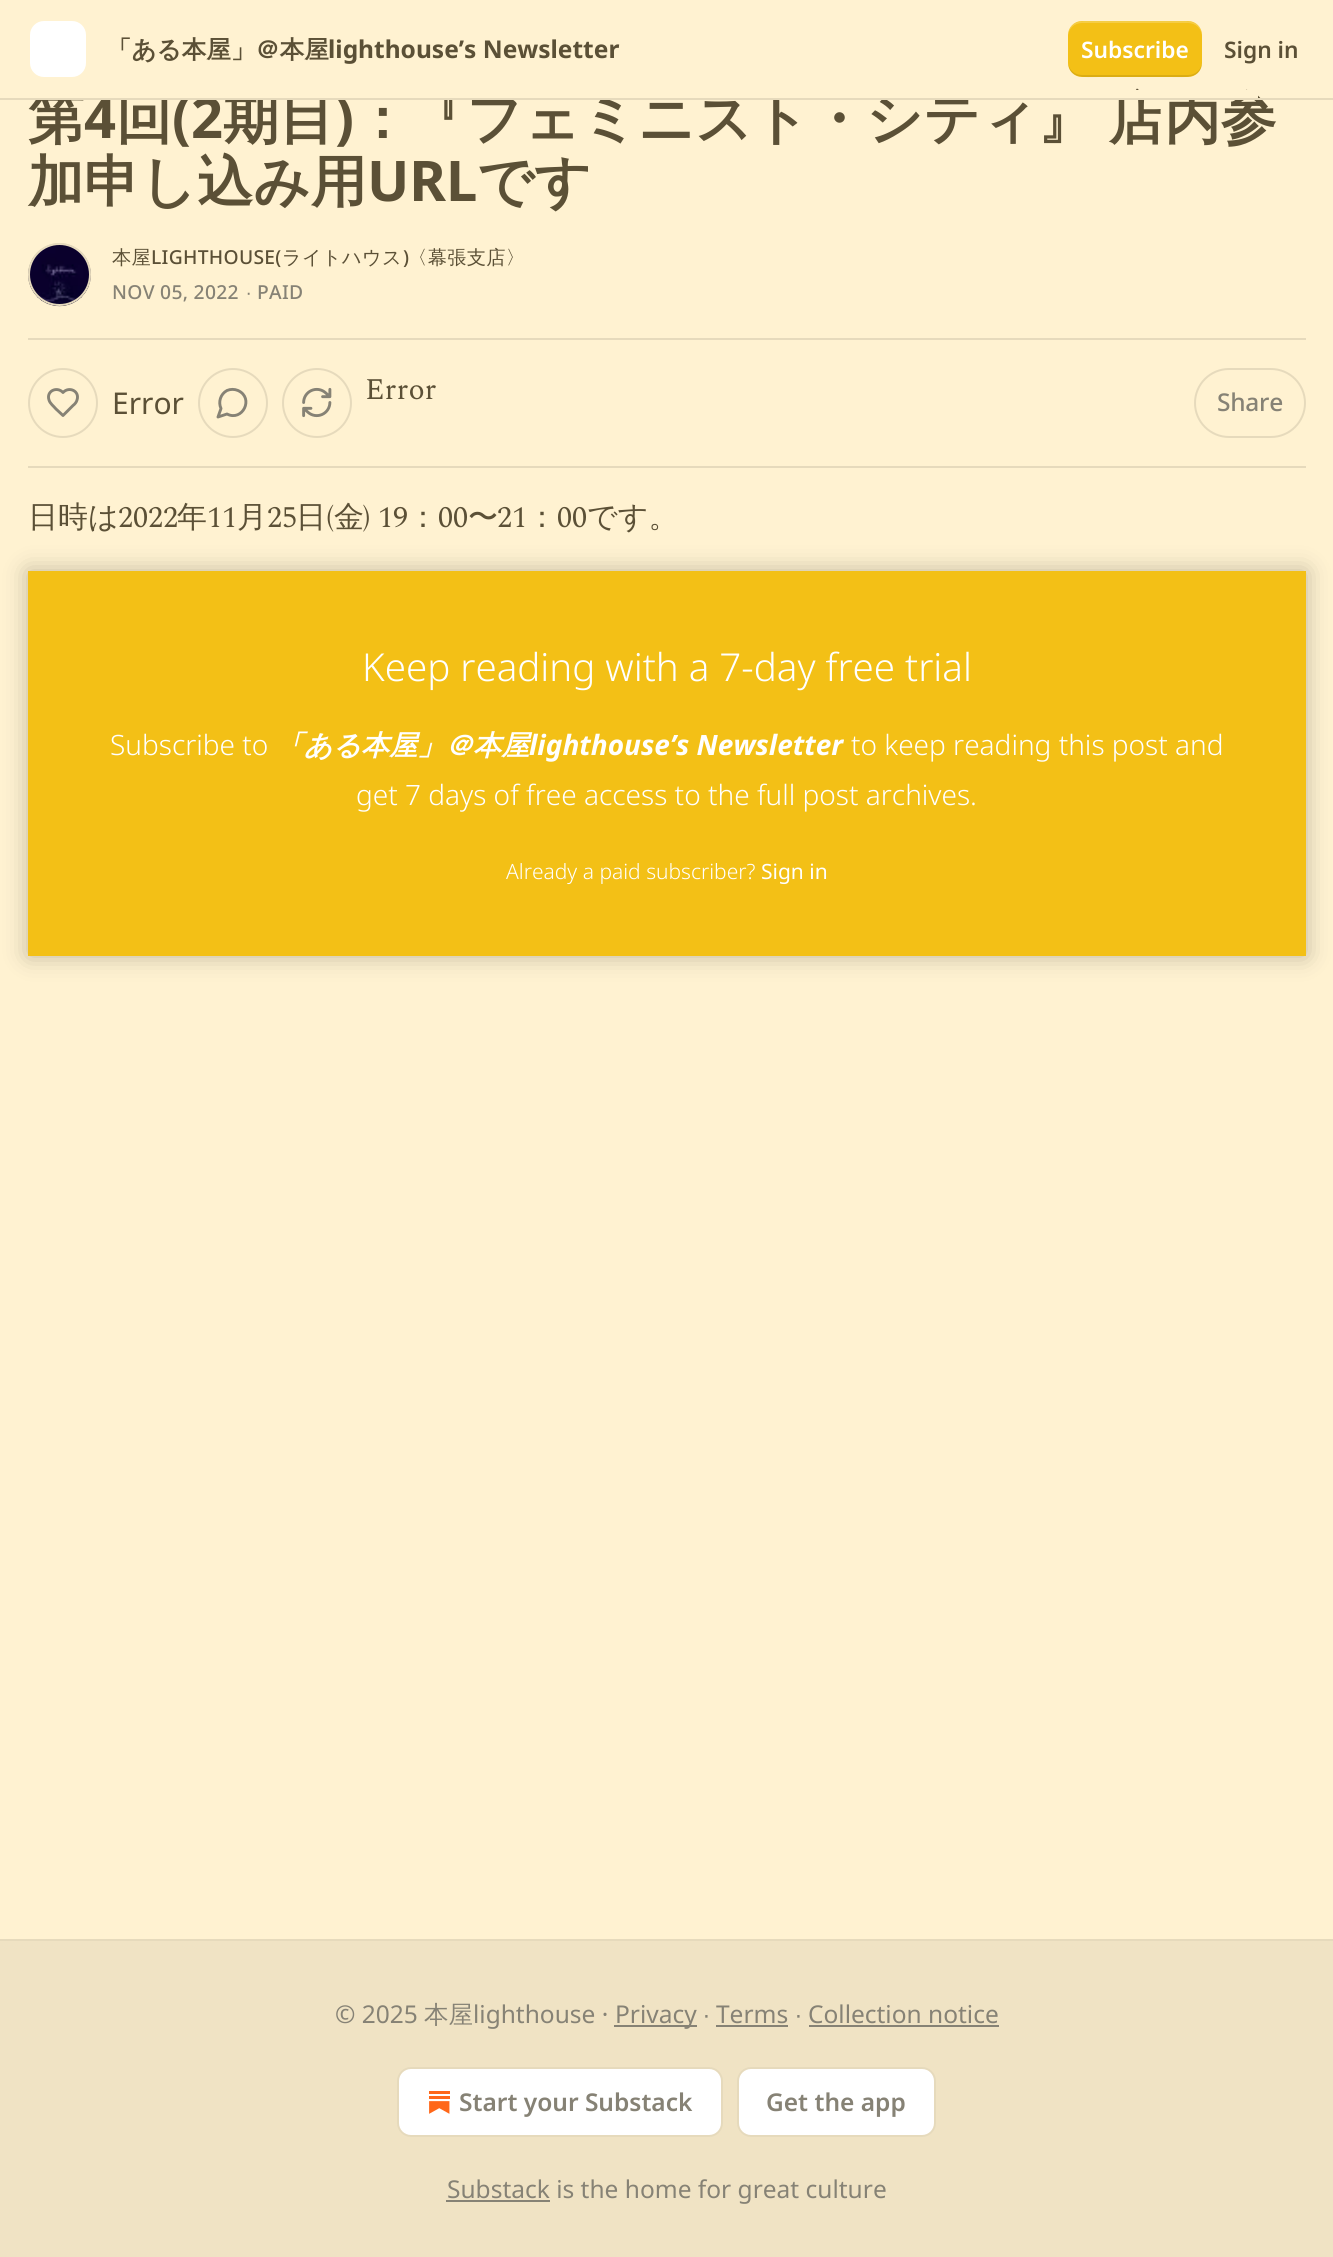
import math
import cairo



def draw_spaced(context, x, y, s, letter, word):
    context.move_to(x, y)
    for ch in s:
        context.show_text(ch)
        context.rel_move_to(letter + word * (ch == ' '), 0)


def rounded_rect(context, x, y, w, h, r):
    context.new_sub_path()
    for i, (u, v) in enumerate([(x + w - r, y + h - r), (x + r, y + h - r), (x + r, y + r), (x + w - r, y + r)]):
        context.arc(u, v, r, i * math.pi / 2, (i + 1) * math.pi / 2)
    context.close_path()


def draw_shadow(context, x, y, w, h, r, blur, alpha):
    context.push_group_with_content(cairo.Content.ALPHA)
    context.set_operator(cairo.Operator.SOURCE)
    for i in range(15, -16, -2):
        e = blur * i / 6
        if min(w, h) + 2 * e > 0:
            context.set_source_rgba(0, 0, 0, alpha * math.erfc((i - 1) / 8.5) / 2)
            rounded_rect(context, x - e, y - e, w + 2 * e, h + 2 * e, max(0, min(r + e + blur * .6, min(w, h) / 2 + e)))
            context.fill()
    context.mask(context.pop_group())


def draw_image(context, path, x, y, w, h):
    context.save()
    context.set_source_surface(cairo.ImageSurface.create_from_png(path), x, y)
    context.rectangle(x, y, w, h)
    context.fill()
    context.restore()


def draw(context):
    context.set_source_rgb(1, 242 / 255, 209 / 255)
    context.paint()
    context.set_source_rgb(1, 1, 1)
    rounded_rect(context, 30, 21, 56, 56, 14)
    context.fill()
    context.set_source_rgb(243 / 255, 192 / 255, 22 / 255)
    rounded_rect(context, 1068, 21, 134, 56, 14)
    context.fill()
    context.set_source_rgba(0, 0, 0, 0.1)
    context.new_path()
    context.move_to(1068, 61)
    context.curve_to(1068, 80, 1085, 77, 1100, 77)
    context.line_to(1170, 77)
    context.curve_to(1185, 77, 1202, 80, 1202, 61)
    context.curve_to(1202, 69, 1196, 75, 1188, 75)
    context.line_to(1082, 75)
    context.curve_to(1074, 75, 1068, 69, 1068, 61)
    context.close_path()
    context.fill()
    context.set_source_rgba(1, 1, 1, 0.2)
    context.new_path()
    context.move_to(1082, 23)
    context.line_to(1188, 23)
    context.curve_to(1196, 23, 1202, 29, 1202, 37)
    context.curve_to(1202, 18, 1185, 21, 1170, 21)
    context.line_to(1100, 21)
    context.curve_to(1085, 21, 1068, 18, 1068, 37)
    context.curve_to(1068, 29, 1074, 23, 1082, 23)
    context.close_path()
    context.fill()
    context.arc(59.5, 274.5, 30.5, 0, 2 * math.pi)
    context.set_source_rgb(230 / 255, 218 / 255, 188 / 255)
    context.stroke()
    draw_image(context, "images/1.png", 28, 243, 63, 64)
    context.arc(59.5, 274.5, 30.5, 0, 2 * math.pi)
    context.stroke()
    context.rectangle(28, 338, 1278, 2)
    context.fill()
    context.rectangle(28, 466, 1278, 2)
    context.fill()
    context.arc(233, 403, 34, 0, 2 * math.pi)
    context.stroke()
    context.new_path()
    context.move_to(227, 414)
    context.curve_to(242.5, 422, 254.5, 398, 238, 390.5)
    context.curve_to(234.5, 389, 230.5, 389, 227, 390.5)
    context.curve_to(220.5, 394, 218, 402, 221, 408.5)
    context.line_to(218, 417)
    context.close_path()
    context.set_source_rgb(134 / 255, 130 / 255, 117 / 255)
    context.set_line_width(2.9)
    context.set_line_cap(cairo.LineCap.ROUND)
    context.set_line_join(cairo.LineJoin.ROUND)
    context.stroke()
    context.arc(317, 403, 34, 0, 2 * math.pi)
    context.set_source_rgb(230 / 255, 218 / 255, 188 / 255)
    context.set_line_width(2)
    context.set_line_cap(cairo.LineCap.BUTT)
    context.set_line_join(cairo.LineJoin.MITER)
    context.stroke()
    draw_image(context, "images/2.png", 302, 387, 30, 31)
    context.arc(63, 403, 34, 0, 2 * math.pi)
    context.stroke()
    context.new_path()
    context.move_to(73, 405.5)
    context.curve_to(75, 404, 76.5, 402, 77, 400)
    context.curve_to(80, 391, 69, 386, 63, 392.5)
    context.curve_to(57, 386, 46, 391, 49, 400)
    context.curve_to(50, 403.5, 53.5, 406, 56, 409)
    context.line_to(63, 415.5)
    context.close_path()
    context.set_source_rgb(134 / 255, 130 / 255, 117 / 255)
    context.set_line_width(2.9)
    context.set_line_cap(cairo.LineCap.ROUND)
    context.set_line_join(cairo.LineJoin.ROUND)
    context.stroke()
    rounded_rect(context, 1195, 369, 110, 68, 34)
    context.set_source_rgb(230 / 255, 218 / 255, 188 / 255)
    context.set_line_width(2)
    context.set_line_cap(cairo.LineCap.BUTT)
    context.set_line_join(cairo.LineJoin.MITER)
    context.stroke()
    context.set_source_rgb(243 / 255, 192 / 255, 22 / 255)
    context.rectangle(28, 571, 1278, 385)
    context.fill()
    context.save()
    context.set_fill_rule(cairo.FillRule.EVEN_ODD)
    context.new_path()
    context.move_to(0, 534)
    context.line_to(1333, 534)
    context.line_to(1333, 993)
    context.line_to(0, 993)
    context.close_path()
    context.move_to(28, 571)
    context.line_to(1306, 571)
    context.line_to(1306, 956)
    context.line_to(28, 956)
    context.close_path()
    context.clip()
    context.set_source_rgb(0, 0, 0)
    draw_shadow(context, 28, 571, 1278, 385, 0, 12, 0.25)
    context.restore()
    context.set_source_rgb(240 / 255, 227 / 255, 196 / 255)
    context.rectangle(0, 1941, 1333, 316)
    context.fill()
    context.set_source_rgb(230 / 255, 218 / 255, 188 / 255)
    context.rectangle(0, 1939, 1333, 2)
    context.fill()
    context.set_source_rgb(134 / 255, 130 / 255, 117 / 255)
    context.rectangle(614, 2025, 83, 2)
    context.fill()
    context.rectangle(716, 2025, 72, 2)
    context.fill()
    context.rectangle(809, 2025, 190, 2)
    context.fill()
    context.set_source_rgb(1, 1, 1)
    rounded_rect(context, 398, 2068, 324, 68, 13)
    context.fill_preserve()
    context.set_source_rgb(230 / 255, 218 / 255, 188 / 255)
    context.stroke()
    draw_image(context, "images/3.png", 429, 2091, 21, 23)
    context.set_source_rgb(1, 1, 1)
    rounded_rect(context, 738, 2068, 197, 68, 13)
    context.fill_preserve()
    context.set_source_rgb(230 / 255, 218 / 255, 188 / 255)
    context.stroke()
    context.set_source_rgb(134 / 255, 130 / 255, 117 / 255)
    context.rectangle(446, 2200, 104, 2)
    context.fill()
    context.select_font_face("WenQuanYi Zen Hei", cairo.FontSlant.NORMAL, cairo.FontWeight.BOLD)
    context.set_font_size(24.5)
    context.set_source_rgb(91 / 255, 80 / 255, 54 / 255)
    context.move_to(107, 58)
    context.show_text("「ある本屋」＠本屋")
    context.select_font_face("Noto Sans", cairo.FontSlant.NORMAL, cairo.FontWeight.BOLD)
    context.move_to(328, 58)
    context.show_text("lighthouse’s Newsletter")
    context.select_font_face("Noto Sans SemiBold")
    context.set_font_size(22.75)
    context.set_source_rgb(1, 1, 1)
    context.move_to(1081, 58)
    context.show_text("Subscribe")
    context.set_source_rgb(91 / 255, 80 / 255, 54 / 255)
    context.move_to(1224, 58)
    context.show_text("Sign in")
    context.select_font_face("WenQuanYi Zen Hei", cairo.FontSlant.NORMAL, cairo.FontWeight.BOLD)
    context.set_font_size(56)
    context.move_to(28, 138)
    context.show_text("第")
    context.select_font_face("Noto Sans", cairo.FontSlant.NORMAL, cairo.FontWeight.BOLD)
    context.move_to(84, 138)
    context.show_text("4")
    context.select_font_face("WenQuanYi Zen Hei", cairo.FontSlant.NORMAL, cairo.FontWeight.BOLD)
    context.move_to(116, 138)
    context.show_text("回")
    context.select_font_face("Noto Sans", cairo.FontSlant.NORMAL, cairo.FontWeight.BOLD)
    context.move_to(172, 138)
    context.show_text("(2")
    context.select_font_face("WenQuanYi Zen Hei", cairo.FontSlant.NORMAL, cairo.FontWeight.BOLD)
    context.move_to(223, 138)
    context.show_text("期目")
    context.select_font_face("Noto Sans", cairo.FontSlant.NORMAL, cairo.FontWeight.BOLD)
    context.move_to(335, 138)
    context.show_text(")")
    context.select_font_face("WenQuanYi Zen Hei", cairo.FontSlant.NORMAL, cairo.FontWeight.BOLD)
    draw_spaced(context, 354, 138, "：『フェミニスト・シティ』 店内参", 0, -2)
    context.set_source_rgb(230 / 255, 218 / 255, 188 / 255)
    context.rectangle(0, 98, 1333, 2)
    context.fill()
    context.set_source_rgb(1, 242 / 255, 209 / 255)
    context.rectangle(37, 90, 1221, 8)
    context.fill()
    context.set_source_rgb(91 / 255, 80 / 255, 54 / 255)
    context.move_to(28, 201)
    context.show_text("加申し込み用")
    context.select_font_face("Noto Sans", cairo.FontSlant.NORMAL, cairo.FontWeight.BOLD)
    context.move_to(367, 201)
    context.show_text("URL")
    context.select_font_face("WenQuanYi Zen Hei", cairo.FontSlant.NORMAL, cairo.FontWeight.BOLD)
    context.move_to(477, 201)
    context.show_text("です")
    context.select_font_face("WenQuanYi Zen Hei Medium")
    context.set_font_size(19.25)
    draw_spaced(context, 112, 264, "本屋", 0.3, 0)
    context.select_font_face("Noto Sans Medium")
    draw_spaced(context, 151, 264, "LIGHTHOUSE(", 0.3, 0)
    context.select_font_face("WenQuanYi Zen Hei Medium")
    draw_spaced(context, 282, 264, "ライトハウス 〈幕張支店〉", 0.3, 0)
    context.select_font_face("Noto Sans Medium")
    draw_spaced(context, 403, 264, ")", 0.3, 0)
    context.set_source_rgb(134 / 255, 130 / 255, 117 / 255)
    draw_spaced(context, 112, 299, "NOV 05, 2022", 0.3, 0)
    context.select_font_face("Liberation Sans")
    draw_spaced(context, 246, 299, "∙", 0.3, 0)
    context.select_font_face("Noto Sans Medium")
    draw_spaced(context, 257, 299, "PAID", 0.3, 0)
    context.select_font_face("Spectral")
    context.set_font_size(30)
    context.set_source_rgb(91 / 255, 80 / 255, 54 / 255)
    context.move_to(365, 399)
    context.show_text("Error")
    context.select_font_face("Noto Sans")
    context.move_to(112, 414)
    context.show_text("Error")
    context.select_font_face("Noto Sans Medium")
    context.set_font_size(24.5)
    context.set_source_rgb(134 / 255, 130 / 255, 117 / 255)
    draw_spaced(context, 1217, 411, "Share", -0.25, 0)
    context.select_font_face("WenQuanYi Zen Hei Medium")
    context.set_font_size(30)
    context.set_source_rgb(91 / 255, 80 / 255, 54 / 255)
    context.move_to(28, 527)
    context.show_text("日時は")
    context.select_font_face("Spectral")
    context.move_to(118, 527)
    context.show_text("2022")
    context.select_font_face("WenQuanYi Zen Hei Medium")
    context.move_to(177, 527)
    context.show_text("年")
    context.select_font_face("Spectral")
    context.move_to(207, 527)
    context.show_text("11")
    context.select_font_face("WenQuanYi Zen Hei Medium")
    context.move_to(237, 527)
    context.show_text("月")
    context.select_font_face("Spectral")
    context.move_to(267, 527)
    context.show_text("25")
    context.select_font_face("WenQuanYi Zen Hei Medium")
    context.move_to(296, 527)
    context.show_text("日")
    context.select_font_face("Spectral")
    context.move_to(326, 527)
    context.show_text("(")
    context.select_font_face("WenQuanYi Zen Hei Medium")
    context.move_to(334, 527)
    context.show_text("金")
    context.select_font_face("Spectral")
    context.move_to(363, 527)
    context.show_text(") 19")
    context.select_font_face("WenQuanYi Zen Hei Medium")
    context.move_to(408, 527)
    context.show_text("：")
    context.select_font_face("Spectral")
    context.move_to(438, 527)
    context.show_text("00")
    context.select_font_face("WenQuanYi Zen Hei Medium")
    context.move_to(468, 527)
    context.show_text("〜")
    context.select_font_face("Spectral")
    context.move_to(497, 527)
    context.show_text("21")
    context.select_font_face("WenQuanYi Zen Hei Medium")
    context.move_to(527, 527)
    context.show_text("：")
    context.select_font_face("Spectral")
    context.move_to(557, 527)
    context.show_text("00")
    context.select_font_face("WenQuanYi Zen Hei Medium")
    context.move_to(587, 527)
    context.show_text("です。")
    context.select_font_face("Noto Sans Light")
    context.set_font_size(38.5)
    context.set_source_rgb(1, 1, 1)
    context.move_to(362, 681)
    context.show_text("Keep reading with a 7-day free trial")
    context.set_font_size(28)
    context.move_to(110, 755)
    context.show_text("Subscribe to")
    context.select_font_face("WenQuanYi Zen Hei", cairo.FontSlant.ITALIC, cairo.FontWeight.BOLD)
    context.move_to(276, 755)
    context.show_text("「ある本屋」＠本屋")
    context.select_font_face("Noto Sans", cairo.FontSlant.ITALIC, cairo.FontWeight.BOLD)
    context.move_to(529, 755)
    context.show_text("lighthouse’s Newsletter")
    context.select_font_face("Noto Sans Light")
    context.move_to(851, 755)
    context.show_text("to keep reading this post and")
    context.move_to(356, 805)
    context.show_text("get 7 days of free access to the full post archives.")
    context.set_font_size(21)
    context.move_to(506, 879)
    context.show_text("Already a paid subscriber?")
    context.select_font_face("Noto Sans")
    context.move_to(761, 879)
    context.show_text("Sign in")
    context.set_font_size(24.5)
    context.set_source_rgb(134 / 255, 130 / 255, 117 / 255)
    context.move_to(335, 2023)
    context.show_text("© 2025")
    context.select_font_face("WenQuanYi Zen Hei Medium")
    context.move_to(424, 2023)
    context.show_text("本屋")
    context.select_font_face("Noto Sans")
    context.move_to(473, 2023)
    context.show_text("lighthouse ·")
    context.move_to(615, 2023)
    context.show_text("Privacy")
    context.select_font_face("Liberation Sans")
    context.move_to(703, 2023)
    context.show_text("∙")
    context.select_font_face("Noto Sans")
    context.move_to(716, 2023)
    context.show_text("Terms")
    context.select_font_face("Liberation Sans")
    context.move_to(795, 2023)
    context.show_text("∙")
    context.select_font_face("Noto Sans")
    context.move_to(808, 2023)
    context.show_text("Collection notice")
    context.select_font_face("Noto Sans SemiBold")
    context.move_to(459, 2111)
    context.show_text("Start your Substack")
    context.move_to(766, 2111)
    context.show_text("Get the app")
    context.select_font_face("Noto Sans")
    context.move_to(447, 2198)
    context.show_text("Substack is the home for great culture")


surface = cairo.ImageSurface(cairo.Format.RGB24, 1333, 2257)
context = cairo.Context(surface)
options = cairo.FontOptions()
options.set_hint_metrics(cairo.HintMetrics.OFF)
options.set_hint_style(cairo.HintStyle.NONE)
context.set_font_options(options)
context.set_miter_limit(4)
draw(context)
surface.write_to_png("out.png")
